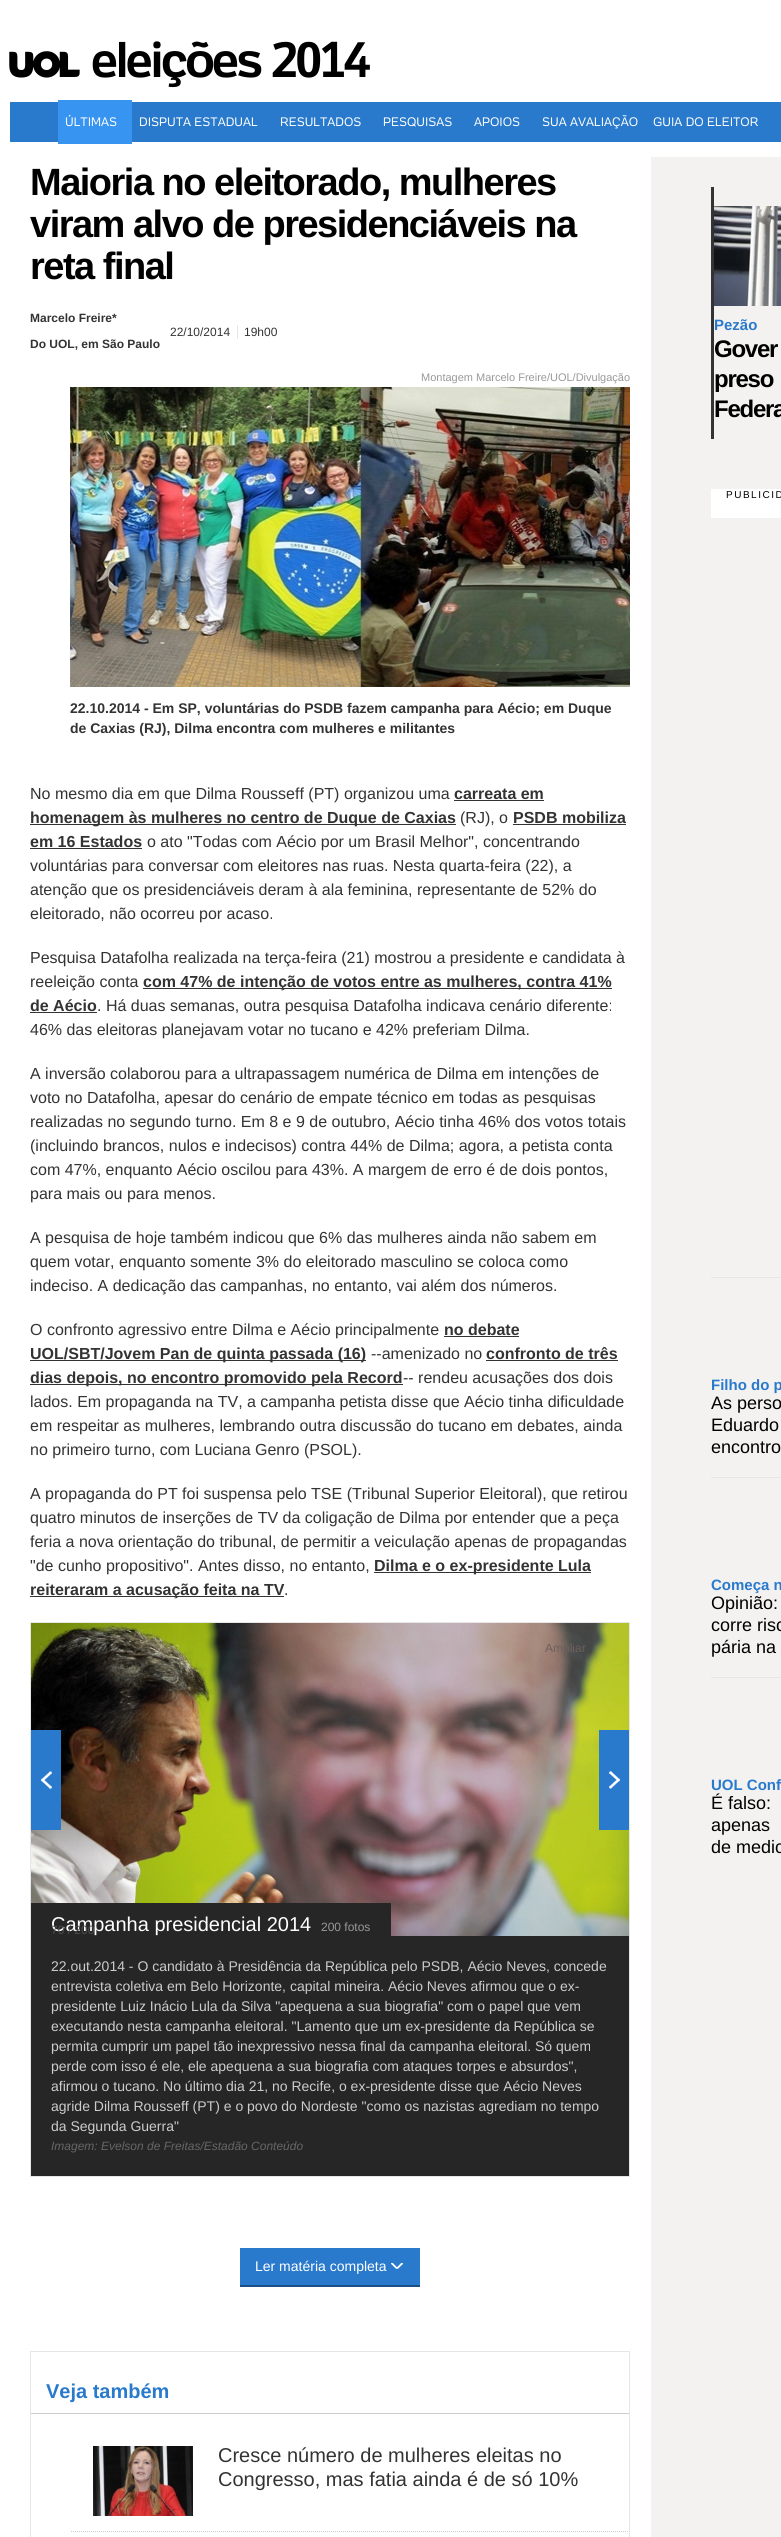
import math
import cairo



def draw_spaced(context, x, y, s, letter, word):
    context.move_to(x, y)
    for ch in s:
        context.show_text(ch)
        context.rel_move_to(letter + word * (ch == ' '), 0)


def draw_image(context, path, x, y, w, h):
    context.save()
    context.set_source_surface(cairo.ImageSurface.create_from_png(path), x, y)
    context.rectangle(x, y, w, h)
    context.fill()
    context.restore()


def draw(context):
    context.set_source_rgb(1, 1, 1)
    context.paint()
    draw_image(context, "images/1.png", 9, 51, 71, 27)
    context.set_source_rgb(41 / 255, 122 / 255, 204 / 255)
    context.rectangle(10, 102, 771, 40)
    context.fill()
    context.set_source_rgb(56 / 255, 148 / 255, 241 / 255)
    context.rectangle(58, 100, 74, 44)
    context.fill()
    context.set_source_rgb(230 / 255, 230 / 255, 230 / 255)
    context.rectangle(237, 325, 1, 14)
    context.fill()
    draw_image(context, "images/2.png", 70, 387, 560, 300)
    context.set_source_rgb(51 / 255, 51 / 255, 51 / 255)
    context.rectangle(454, 800, 90, 1)
    context.fill()
    context.rectangle(30, 824, 426, 1)
    context.fill()
    context.rectangle(513, 824, 113, 1)
    context.fill()
    context.rectangle(30, 848, 112, 1)
    context.fill()
    context.rectangle(143, 988, 469, 1)
    context.fill()
    context.rectangle(30, 1012, 67, 1)
    context.fill()
    context.rectangle(444, 1336, 75, 1)
    context.fill()
    context.rectangle(30, 1360, 336, 1)
    context.fill()
    context.rectangle(486, 1360, 132, 1)
    context.fill()
    context.rectangle(30, 1384, 373, 1)
    context.fill()
    context.rectangle(374, 1572, 217, 1)
    context.fill()
    context.rectangle(30, 1596, 254, 1)
    context.fill()
    context.rectangle(30.5, 1622.5, 599, 554)
    context.set_source_rgb(230 / 255, 230 / 255, 230 / 255)
    context.set_line_width(1)
    context.stroke()
    draw_image(context, "images/5.png", 31, 1623, 598, 313)
    context.set_source_rgb(41 / 255, 122 / 255, 204 / 255)
    context.rectangle(31, 1730, 30, 100)
    context.fill()
    draw_image(context, "images/3.png", 41, 1771, 11, 18)
    context.rectangle(599, 1730, 30, 100)
    context.fill()
    draw_image(context, "images/4.png", 609, 1771, 11, 18)
    context.set_source_rgb(38 / 255, 38 / 255, 38 / 255)
    context.rectangle(31, 1903, 360, 33)
    context.fill()
    context.rectangle(31, 1936, 598, 240)
    context.fill()
    draw_image(context, "images/6.png", 30, 2201, 595, 150)
    context.set_source_rgb(41 / 255, 122 / 255, 204 / 255)
    context.rectangle(240, 2248, 180, 37)
    context.fill()
    context.set_source_rgb(27 / 255, 79 / 255, 133 / 255)
    context.rectangle(240, 2285, 180, 2)
    context.fill()
    draw_image(context, "images/7.png", 391, 2263, 12, 6)
    context.rectangle(30.5, 2351.5, 599, 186)
    context.set_source_rgb(230 / 255, 230 / 255, 230 / 255)
    context.stroke()
    context.set_source_rgb(204 / 255, 204 / 255, 204 / 255)
    context.rectangle(31, 2413, 598, 1)
    context.fill()
    context.new_path()
    context.move_to(71, 2531.5)
    context.line_to(629, 2531.5)
    context.set_dash([1, 1])
    context.stroke()
    draw_image(context, "images/8.png", 93, 2446, 100, 70)
    context.set_source_rgb(243 / 255, 242 / 255, 241 / 255)
    context.rectangle(651, 157, 130, 2380)
    context.fill()
    context.set_source_rgb(51 / 255, 51 / 255, 51 / 255)
    context.rectangle(711, 187, 3, 252)
    context.fill()
    draw_image(context, "images/9.png", 714, 206, 67, 100)
    context.set_source_rgb(1, 1, 1)
    context.rectangle(711, 489, 70, 29)
    context.fill()
    context.set_source_rgb(230 / 255, 230 / 255, 230 / 255)
    context.rectangle(711, 1277, 70, 1)
    context.fill()
    context.rectangle(711, 1477, 70, 1)
    context.fill()
    context.rectangle(711, 1677, 70, 1)
    context.fill()
    context.select_font_face("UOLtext", cairo.FontSlant.NORMAL, cairo.FontWeight.BOLD)
    context.set_font_size(49)
    context.set_source_rgb(0, 0, 0)
    draw_spaced(context, 91, 77, "eleições 2014", -3, 0)
    context.select_font_face("UOLtext")
    context.set_font_size(12)
    context.set_source_rgb(1, 1, 1)
    context.move_to(65, 126)
    context.show_text("ÚLTIMAS")
    context.move_to(139, 126)
    context.show_text("DISPUTA ESTADUAL")
    context.move_to(280, 126)
    context.show_text("RESULTADOS")
    context.move_to(383, 126)
    context.show_text("PESQUISAS")
    context.move_to(474, 126)
    context.show_text("APOIOS")
    context.move_to(542, 126)
    context.show_text("SUA AVALIAÇÃO")
    context.move_to(653, 126)
    context.show_text("GUIA DO ELEITOR")
    context.select_font_face("Liberation Sans", cairo.FontSlant.NORMAL, cairo.FontWeight.BOLD)
    context.set_font_size(38)
    context.set_source_rgb(0, 0, 0)
    draw_spaced(context, 30, 195, "Maioria no eleitorado, mulheres", -1.5, 0)
    draw_spaced(context, 30, 237, "viram alvo de presidenciáveis na", -1.5, 0)
    draw_spaced(context, 30, 279, "reta final", -1.5, 0)
    context.set_font_size(12)
    context.set_source_rgb(51 / 255, 51 / 255, 51 / 255)
    context.move_to(30, 322)
    context.show_text("Marcelo Freire*")
    context.select_font_face("Liberation Sans")
    context.move_to(170, 336)
    context.show_text("22/10/2014")
    context.move_to(244, 336)
    context.show_text("19h00")
    context.select_font_face("Liberation Sans", cairo.FontSlant.NORMAL, cairo.FontWeight.BOLD)
    context.move_to(30, 348)
    context.show_text("Do UOL, em São Paulo")
    context.select_font_face("Liberation Sans")
    context.set_font_size(11)
    context.set_source_rgb(153 / 255, 153 / 255, 153 / 255)
    context.move_to(421, 381)
    context.show_text("Montagem Marcelo Freire/UOL/Divulgação")
    context.select_font_face("Liberation Sans", cairo.FontSlant.NORMAL, cairo.FontWeight.BOLD)
    context.set_font_size(14)
    context.set_source_rgb(51 / 255, 51 / 255, 51 / 255)
    context.move_to(70, 713)
    context.show_text("22.10.2014 - Em SP, voluntárias do PSDB fazem campanha para Aécio; em Duque")
    context.move_to(70, 733)
    context.show_text("de Caxias (RJ), Dilma encontra com mulheres e militantes")
    context.select_font_face("Liberation Sans")
    context.set_font_size(16)
    context.move_to(30, 799)
    context.show_text("No mesmo dia em que Dilma Rousseff (PT) organizou uma")
    context.select_font_face("Liberation Sans", cairo.FontSlant.NORMAL, cairo.FontWeight.BOLD)
    context.move_to(454, 799)
    context.show_text("carreata em")
    context.move_to(30, 823)
    context.show_text("homenagem às mulheres no centro de Duque de Caxias")
    context.select_font_face("Liberation Sans")
    context.move_to(460, 823)
    context.show_text("(RJ), o")
    context.select_font_face("Liberation Sans", cairo.FontSlant.NORMAL, cairo.FontWeight.BOLD)
    context.move_to(513, 823)
    context.show_text("PSDB mobiliza")
    context.move_to(30, 847)
    context.show_text("em 16 Estados")
    context.select_font_face("Liberation Sans")
    context.move_to(147, 847)
    context.show_text("o ato \"Todas com Aécio por um Brasil Melhor\", concentrando")
    context.move_to(30, 871)
    context.show_text("voluntárias para conversar com eleitores nas ruas. Nesta quarta-feira (22), a")
    context.move_to(30, 895)
    context.show_text("atenção que os presidenciáveis deram à ala feminina, representante de 52% do")
    context.move_to(30, 919)
    context.show_text("eleitorado, não ocorreu por acaso.")
    context.move_to(30, 963)
    context.show_text("Pesquisa Datafolha realizada na terça-feira (21) mostrou a presidente e candidata à")
    context.move_to(30, 987)
    context.show_text("reeleição conta")
    context.select_font_face("Liberation Sans", cairo.FontSlant.NORMAL, cairo.FontWeight.BOLD)
    context.move_to(143, 987)
    context.show_text("com 47% de intenção de votos entre as mulheres, contra 41%")
    context.move_to(30, 1011)
    context.show_text("de Aécio")
    context.select_font_face("Liberation Sans")
    context.move_to(97, 1011)
    context.show_text(". Há duas semanas, outra pesquisa Datafolha indicava cenário diferente:")
    context.move_to(30, 1035)
    context.show_text("46% das eleitoras planejavam votar no tucano e 42% preferiam Dilma.")
    context.move_to(30, 1079)
    context.show_text("A inversão colaborou para a ultrapassagem numérica de Dilma em intenções de")
    context.move_to(30, 1103)
    context.show_text("voto no Datafolha, apesar do cenário de empate técnico em todas as pesquisas")
    context.move_to(30, 1127)
    context.show_text("realizadas no segundo turno. Em 8 e 9 de outubro, Aécio tinha 46% dos votos totais")
    context.move_to(30, 1151)
    context.show_text("(incluindo brancos, nulos e indecisos) contra 44% de Dilma; agora, a petista conta")
    context.move_to(30, 1175)
    context.show_text("com 47%, enquanto Aécio oscilou para 43%. A margem de erro é de dois pontos,")
    context.move_to(30, 1199)
    context.show_text("para mais ou para menos.")
    context.move_to(30, 1243)
    context.show_text("A pesquisa de hoje também indicou que 6% das mulheres ainda não sabem em")
    context.move_to(30, 1267)
    context.show_text("quem votar, enquanto somente 3% do eleitorado masculino se coloca como")
    context.move_to(30, 1291)
    context.show_text("indeciso. A dedicação das campanhas, no entanto, vai além dos números.")
    context.move_to(30, 1335)
    context.show_text("O confronto agressivo entre Dilma e Aécio principalmente")
    context.select_font_face("Liberation Sans", cairo.FontSlant.NORMAL, cairo.FontWeight.BOLD)
    context.move_to(444, 1335)
    context.show_text("no debate")
    context.move_to(30, 1359)
    context.show_text("UOL/SBT/Jovem Pan de quinta passada (16)")
    context.select_font_face("Liberation Sans")
    context.move_to(371, 1359)
    context.show_text("--amenizado no")
    context.select_font_face("Liberation Sans", cairo.FontSlant.NORMAL, cairo.FontWeight.BOLD)
    context.move_to(486, 1359)
    context.show_text("confronto de três")
    context.move_to(30, 1383)
    context.show_text("dias depois, no encontro promovido pela Record")
    context.select_font_face("Liberation Sans")
    context.move_to(403, 1383)
    context.show_text("-- rendeu acusações dos dois")
    context.move_to(30, 1407)
    context.show_text("lados. Em propaganda na TV, a campanha petista disse que Aécio tinha dificuldade")
    context.move_to(30, 1431)
    context.show_text("em respeitar as mulheres, lembrando outra discussão do tucano em debates, ainda")
    context.move_to(30, 1455)
    context.show_text("no primeiro turno, com Luciana Genro (PSOL).")
    context.move_to(30, 1499)
    context.show_text("A propaganda do PT foi suspensa pelo TSE (Tribunal Superior Eleitoral), que retirou")
    context.move_to(30, 1523)
    context.show_text("quatro minutos de inserções de TV da coligação de Dilma por entender que a peça")
    context.move_to(30, 1547)
    context.show_text("feria a nova orientação do tribunal, de permitir a veiculação apenas de propagandas")
    context.move_to(30, 1571)
    context.show_text("\"de cunho propositivo\". Antes disso, no entanto,")
    context.select_font_face("Liberation Sans", cairo.FontSlant.NORMAL, cairo.FontWeight.BOLD)
    context.move_to(374, 1571)
    context.show_text("Dilma e o ex-presidente Lula")
    context.move_to(30, 1595)
    context.show_text("reiteraram a acusação feita na TV")
    context.select_font_face("Liberation Sans")
    context.move_to(284, 1595)
    context.show_text(".")
    context.set_font_size(12)
    context.set_source_rgb(108 / 255, 96 / 255, 91 / 255)
    context.move_to(545, 1652)
    context.show_text("Ampliar")
    context.set_font_size(20)
    context.set_source_rgb(1, 1, 1)
    context.move_to(51, 1931)
    context.show_text("Campanha presidencial 2014")
    context.set_font_size(12)
    context.set_source_rgb(153 / 255, 153 / 255, 153 / 255)
    context.move_to(321, 1931)
    context.show_text("200 fotos")
    context.set_source_rgb(75 / 255, 75 / 255, 75 / 255)
    context.move_to(51, 1934)
    context.show_text("70 / 200")
    context.set_font_size(14)
    context.set_source_rgb(204 / 255, 204 / 255, 204 / 255)
    context.move_to(51, 1971)
    context.show_text("22.out.2014 - O candidato à Presidência da República pelo PSDB, Aécio Neves, concede")
    context.move_to(51, 1991)
    context.show_text("entrevista coletiva em Belo Horizonte, capital mineira. Aécio Neves afirmou que o ex-")
    context.move_to(51, 2011)
    context.show_text("presidente Luiz Inácio Lula da Silva \"apequena a sua biografia\" com o papel que vem")
    context.move_to(51, 2031)
    context.show_text("executando nesta campanha eleitoral. \"Lamento que um ex-presidente da República se")
    context.move_to(51, 2051)
    context.show_text("permita cumprir um papel tão inexpressivo nessa final da campanha eleitoral. Só quem")
    context.move_to(51, 2071)
    context.show_text("perde com isso é ele, ele apequena a sua biografia com ataques torpes e absurdos\",")
    context.move_to(51, 2091)
    context.show_text("afirmou o tucano. No último dia 21, no Recife, o ex-presidente disse que Aécio Neves")
    context.move_to(51, 2111)
    context.show_text("agride Dilma Rousseff (PT) e o povo do Nordeste \"como os nazistas agrediam no tempo")
    context.move_to(51, 2131)
    context.show_text("da Segunda Guerra\"")
    context.select_font_face("Liberation Sans", cairo.FontSlant.ITALIC)
    context.set_font_size(12)
    context.set_source_rgb(102 / 255, 102 / 255, 102 / 255)
    context.move_to(51, 2150)
    context.show_text("Imagem: Evelson de Freitas/Estadão Conteúdo")
    context.select_font_face("Liberation Sans")
    context.set_font_size(14)
    context.set_source_rgb(1, 1, 1)
    context.move_to(255, 2271)
    context.show_text("Ler matéria completa")
    context.select_font_face("Liberation Sans", cairo.FontSlant.NORMAL, cairo.FontWeight.BOLD)
    context.set_font_size(20)
    context.set_source_rgb(41 / 255, 122 / 255, 204 / 255)
    context.move_to(46, 2398)
    context.show_text("Veja também")
    context.select_font_face("Liberation Sans")
    context.set_source_rgb(51 / 255, 51 / 255, 51 / 255)
    context.move_to(218, 2462)
    context.show_text("Cresce número de mulheres eleitas no")
    context.move_to(218, 2486)
    context.show_text("Congresso, mas fatia ainda é de só 10%")
    context.select_font_face("Liberation Sans", cairo.FontSlant.NORMAL, cairo.FontWeight.BOLD)
    context.set_font_size(15)
    context.set_source_rgb(41 / 255, 122 / 255, 204 / 255)
    context.move_to(714, 330)
    context.show_text("Pezão")
    context.set_font_size(24)
    context.set_source_rgb(0, 0, 0)
    draw_spaced(context, 714, 357, "Gover", -1.25, 0)
    draw_spaced(context, 714, 387, "preso", -1.25, 0)
    draw_spaced(context, 714, 417, "Federa", -1.25, 0)
    context.select_font_face("Liberation Sans")
    context.set_font_size(10)
    draw_spaced(context, 726, 498, "PUBLICID", 1.5, 0)
    context.select_font_face("Liberation Sans", cairo.FontSlant.NORMAL, cairo.FontWeight.BOLD)
    context.set_font_size(15)
    context.set_source_rgb(41 / 255, 122 / 255, 204 / 255)
    context.move_to(711, 1390)
    context.show_text("Filho do p")
    context.select_font_face("Liberation Sans")
    context.set_font_size(18)
    context.set_source_rgb(0, 0, 0)
    context.move_to(711, 1409)
    context.show_text("As perso")
    context.move_to(711, 1431)
    context.show_text("Eduardo")
    context.move_to(711, 1453)
    context.show_text("encontro")
    context.select_font_face("Liberation Sans", cairo.FontSlant.NORMAL, cairo.FontWeight.BOLD)
    context.set_font_size(15)
    context.set_source_rgb(41 / 255, 122 / 255, 204 / 255)
    context.move_to(711, 1590)
    context.show_text("Começa n")
    context.select_font_face("Liberation Sans")
    context.set_font_size(18)
    context.set_source_rgb(0, 0, 0)
    context.move_to(711, 1609)
    context.show_text("Opinião:")
    context.move_to(711, 1631)
    context.show_text("corre risc")
    context.move_to(711, 1653)
    context.show_text("pária na")
    context.select_font_face("Liberation Sans", cairo.FontSlant.NORMAL, cairo.FontWeight.BOLD)
    context.set_font_size(15)
    context.set_source_rgb(41 / 255, 122 / 255, 204 / 255)
    context.move_to(711, 1790)
    context.show_text("UOL Conf")
    context.select_font_face("Liberation Sans")
    context.set_font_size(18)
    context.set_source_rgb(0, 0, 0)
    context.move_to(711, 1809)
    context.show_text("É falso:")
    context.move_to(711, 1831)
    context.show_text("apenas")
    context.move_to(711, 1853)
    context.show_text("de medic")


surface = cairo.ImageSurface(cairo.Format.RGB24, 781, 2537)
context = cairo.Context(surface)
options = cairo.FontOptions()
options.set_hint_metrics(cairo.HintMetrics.OFF)
options.set_hint_style(cairo.HintStyle.NONE)
context.set_font_options(options)
context.set_miter_limit(4)
draw(context)
surface.write_to_png("out.png")
